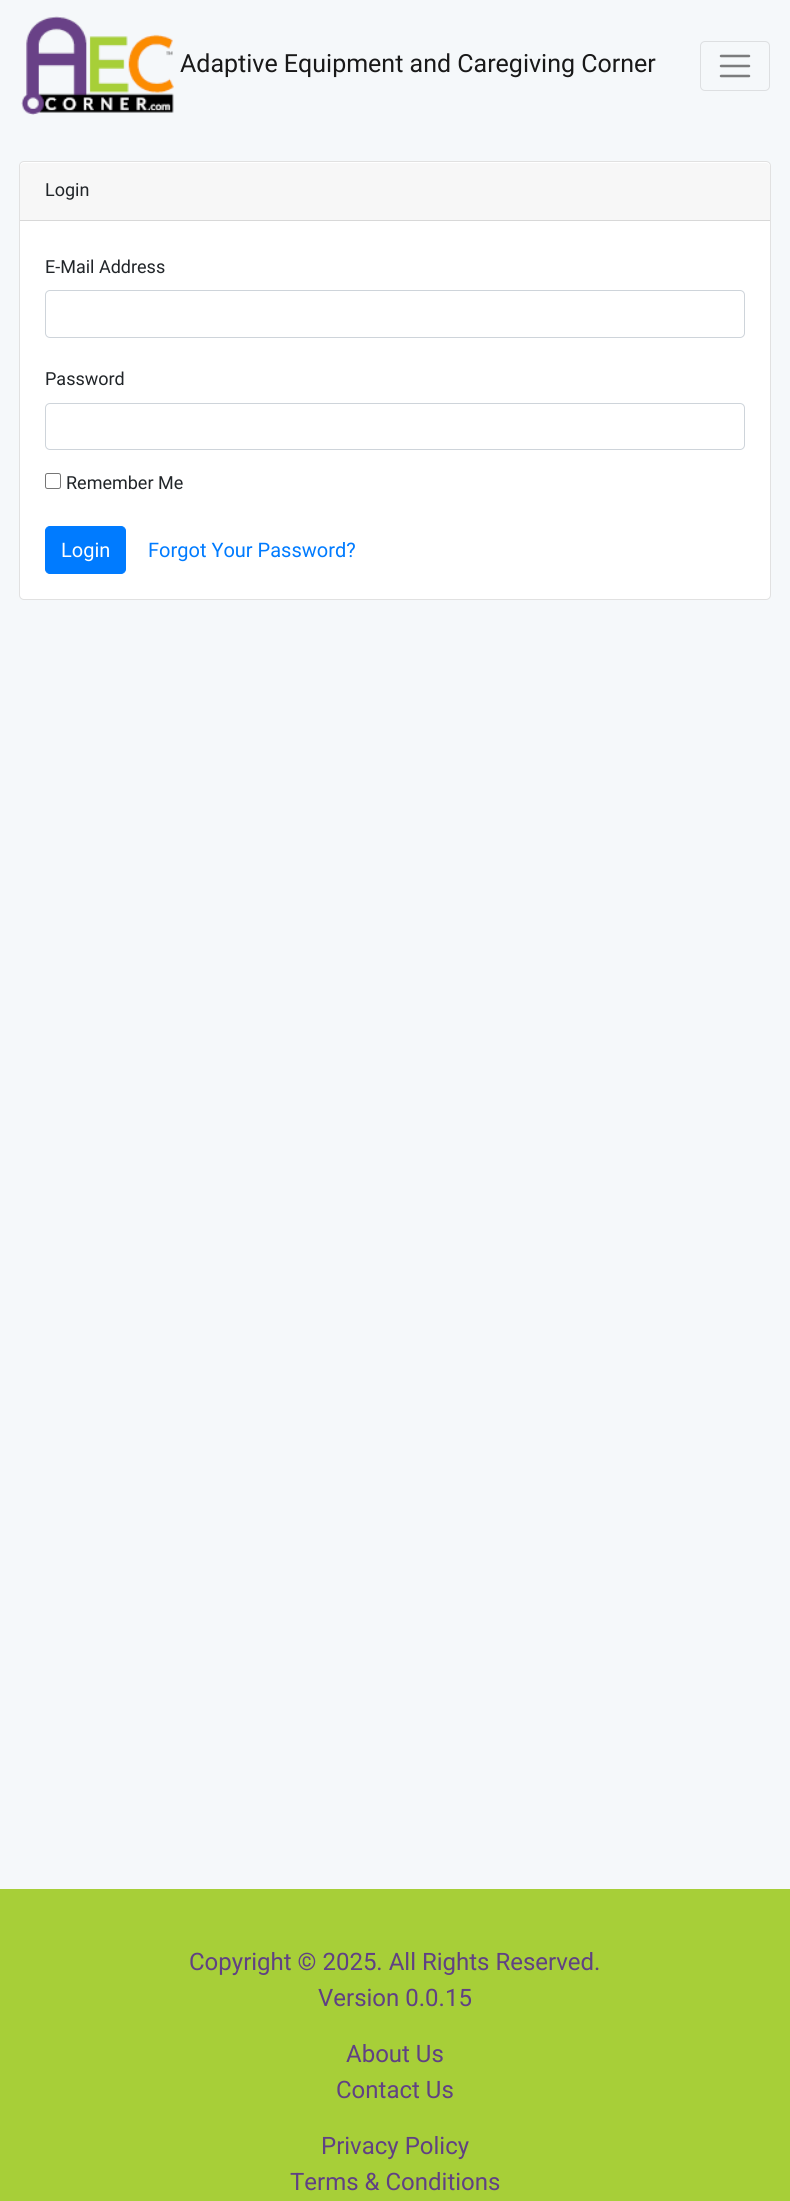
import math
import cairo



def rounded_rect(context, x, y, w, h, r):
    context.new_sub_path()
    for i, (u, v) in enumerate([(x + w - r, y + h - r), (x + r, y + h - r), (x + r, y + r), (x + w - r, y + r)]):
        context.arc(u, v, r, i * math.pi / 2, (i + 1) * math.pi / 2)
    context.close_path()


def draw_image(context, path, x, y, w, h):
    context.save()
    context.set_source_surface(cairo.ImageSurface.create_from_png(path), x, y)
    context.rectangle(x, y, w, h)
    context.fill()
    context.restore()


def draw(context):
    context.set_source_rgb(245 / 255, 248 / 255, 250 / 255)
    context.paint()
    draw_image(context, "images/1.png", 21, 16, 153, 99)
    rounded_rect(context, 700.5, 41.5, 69, 49, 4.5)
    context.set_source_rgb(221 / 255, 223 / 255, 225 / 255)
    context.set_line_width(1)
    context.stroke()
    context.new_path()
    context.move_to(721, 56)
    context.line_to(749, 56)
    context.move_to(721, 66)
    context.line_to(749, 66)
    context.move_to(721, 76)
    context.line_to(749, 76)
    context.set_source_rgb(123 / 255, 124 / 255, 125 / 255)
    context.set_line_width(2.5)
    context.set_line_cap(cairo.LineCap.ROUND)
    context.stroke()
    context.set_source_rgb(1, 1, 1)
    rounded_rect(context, 19, 161, 752, 439, 5)
    context.fill()
    rounded_rect(context, 19.5, 161.5, 751, 438, 4.5)
    context.set_source_rgba(0, 0, 0, 0.12)
    context.set_line_width(1)
    context.set_line_cap(cairo.LineCap.BUTT)
    context.stroke()
    context.set_source_rgb(247 / 255, 247 / 255, 247 / 255)
    context.new_path()
    context.move_to(24, 163)
    context.line_to(766, 163)
    context.curve_to(768, 163, 770, 165, 770, 167)
    context.line_to(770, 221)
    context.line_to(20, 221)
    context.line_to(20, 167)
    context.curve_to(20, 165, 22, 163, 24, 163)
    context.close_path()
    context.fill()
    context.set_source_rgb(216 / 255, 216 / 255, 216 / 255)
    context.rectangle(20, 220, 750, 1)
    context.fill()
    rounded_rect(context, 45.5, 290.5, 699, 47, 4.5)
    context.set_source_rgb(206 / 255, 212 / 255, 218 / 255)
    context.stroke()
    rounded_rect(context, 45.5, 403.5, 699, 46, 4.5)
    context.stroke()
    rounded_rect(context, 45.5, 473.5, 15, 15, 2)
    context.set_source_rgb(118 / 255, 118 / 255, 118 / 255)
    context.stroke()
    context.set_source_rgb(0, 123 / 255, 1)
    rounded_rect(context, 45.5, 526.5, 80, 47, 4.5)
    context.fill_preserve()
    context.stroke()
    context.set_source_rgb(167 / 255, 207 / 255, 56 / 255)
    context.rectangle(0, 1889, 790, 312)
    context.fill()
    context.select_font_face("Roboto")
    context.set_font_size(25)
    context.set_source_rgb(25 / 255, 25 / 255, 25 / 255)
    context.move_to(180, 72)
    context.show_text("Adaptive Equipment and Caregiving Corner")
    context.set_font_size(18)
    context.set_source_rgb(33 / 255, 37 / 255, 41 / 255)
    context.move_to(45, 196)
    context.show_text("Login")
    context.move_to(45, 273)
    context.show_text("E-Mail Address")
    context.move_to(45, 385)
    context.show_text("Password")
    context.move_to(66, 489)
    context.show_text("Remember Me")
    context.set_font_size(20)
    context.set_source_rgb(1, 1, 1)
    context.move_to(61, 557)
    context.show_text("Login")
    context.set_source_rgb(0, 123 / 255, 1)
    context.move_to(148, 557)
    context.show_text("Forgot Your Password?")
    context.set_font_size(24)
    context.set_source_rgb(96 / 255, 65 / 255, 131 / 255)
    context.move_to(189, 1970)
    context.show_text("Copyright © 2025. All Rights Reserved.")
    context.move_to(318, 2006)
    context.show_text("Version 0.0.15")
    context.move_to(346, 2062)
    context.show_text("About Us")
    context.move_to(336, 2098)
    context.show_text("Contact Us")
    context.move_to(321, 2154)
    context.show_text("Privacy Policy")
    context.move_to(290, 2190)
    context.show_text("Terms & Conditions")


surface = cairo.ImageSurface(cairo.Format.RGB24, 790, 2201)
context = cairo.Context(surface)
options = cairo.FontOptions()
options.set_hint_metrics(cairo.HintMetrics.OFF)
options.set_hint_style(cairo.HintStyle.NONE)
context.set_font_options(options)
context.set_miter_limit(4)
draw(context)
surface.write_to_png("out.png")
